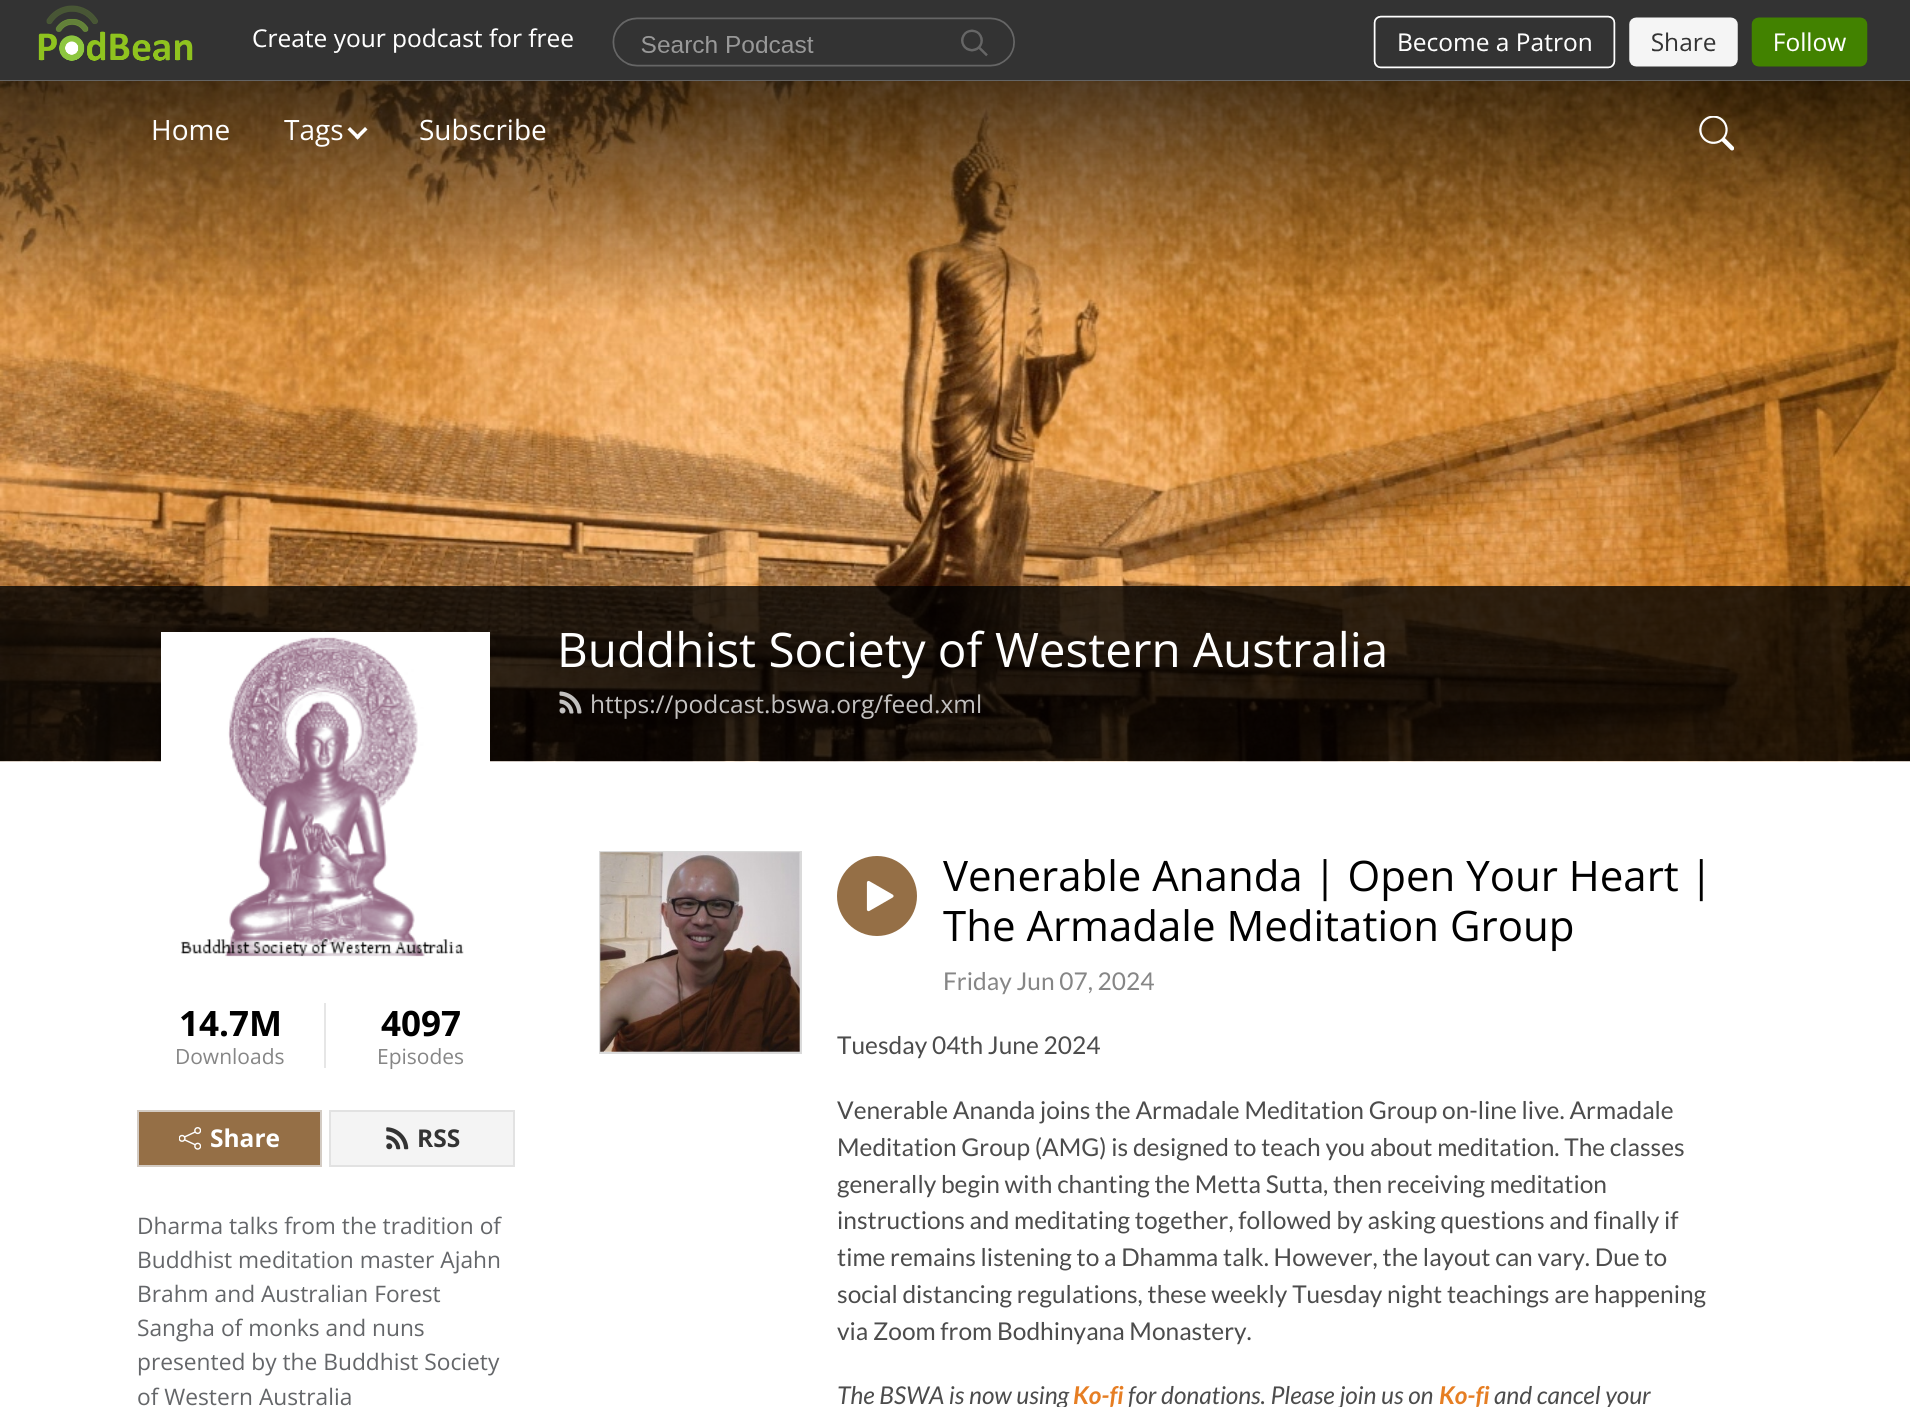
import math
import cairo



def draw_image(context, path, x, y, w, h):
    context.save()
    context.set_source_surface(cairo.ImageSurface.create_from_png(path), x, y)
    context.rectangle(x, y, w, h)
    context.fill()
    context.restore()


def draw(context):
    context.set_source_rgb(1, 1, 1)
    context.paint()
    context.set_source_rgb(51 / 255, 51 / 255, 51 / 255)
    context.rectangle(0, 0, 1910, 5)
    context.fill()
    draw_image(context, "images/1.png", 0, 5, 1910, 76)
    draw_image(context, "images/3.png", 0, 81, 1910, 681)
    context.set_source_rgb(1, 1, 1)
    context.new_path()
    context.move_to(365, 127)
    context.line_to(367.5, 129.5)
    context.line_to(357.5, 139.5)
    context.line_to(355, 137)
    context.close_path()
    context.fill()
    context.new_path()
    context.move_to(350, 127)
    context.line_to(360, 137)
    context.line_to(357.5, 139.5)
    context.line_to(347.5, 129.5)
    context.close_path()
    context.fill()
    draw_image(context, "images/2.png", 1699, 116, 35, 35)
    context.set_source_rgba(0, 0, 0, 0.8)
    context.rectangle(0, 586, 1910, 175)
    context.fill()
    draw_image(context, "images/4.png", 559, 691, 23, 23)
    context.rectangle(163, 634, 325, 325)
    context.set_source_rgb(1, 1, 1)
    context.set_line_width(4)
    context.stroke()
    draw_image(context, "images/5.png", 165, 636, 321, 321)
    context.set_source_rgb(230 / 255, 230 / 255, 230 / 255)
    context.rectangle(324, 1003, 2, 65)
    context.fill()
    context.set_source_rgb(149 / 255, 111 / 255, 70 / 255)
    context.rectangle(138, 1111, 183, 55)
    context.fill_preserve()
    context.set_source_rgb(211 / 255, 203 / 255, 195 / 255)
    context.set_line_width(2)
    context.stroke()
    draw_image(context, "images/6.png", 179, 1127, 22, 23)
    context.set_source_rgb(244 / 255, 244 / 255, 244 / 255)
    context.rectangle(330, 1111, 184, 55)
    context.fill_preserve()
    context.set_source_rgb(226 / 255, 226 / 255, 226 / 255)
    context.stroke()
    draw_image(context, "images/7.png", 386, 1127, 23, 23)
    context.rectangle(600, 852, 201, 201)
    context.set_source_rgb(218 / 255, 218 / 255, 218 / 255)
    context.stroke()
    draw_image(context, "images/8.png", 600, 852, 200, 200)
    context.set_source_rgb(149 / 255, 111 / 255, 70 / 255)
    context.arc(877, 896, 40, 0, 2 * math.pi)
    context.fill()
    draw_image(context, "images/9.png", 866, 880, 28, 32)
    context.select_font_face("Open Sans")
    context.set_font_size(28)
    context.set_source_rgb(1, 1, 1)
    context.move_to(151, 140)
    context.show_text("Home")
    context.move_to(284, 140)
    context.show_text("Tags")
    context.move_to(419, 140)
    context.show_text("Subscribe")
    context.set_font_size(47.6)
    context.move_to(557, 667)
    context.show_text("Buddhist Society of Western Australia")
    context.set_font_size(24.5)
    context.set_source_rgb(195 / 255, 193 / 255, 192 / 255)
    context.move_to(590, 713)
    context.show_text("https://podcast.bswa.org/feed.xml")
    context.select_font_face("Open Sans", cairo.FontSlant.NORMAL, cairo.FontWeight.BOLD)
    context.set_font_size(35)
    context.set_source_rgb(0, 0, 0)
    context.move_to(179, 1036)
    context.show_text("14.7M")
    context.select_font_face("Open Sans")
    context.set_font_size(21)
    context.set_source_rgb(134 / 255, 134 / 255, 134 / 255)
    context.move_to(175, 1064)
    context.show_text("Downloads")
    context.select_font_face("Open Sans", cairo.FontSlant.NORMAL, cairo.FontWeight.BOLD)
    context.set_font_size(35)
    context.set_source_rgb(0, 0, 0)
    context.move_to(381, 1036)
    context.show_text("4097")
    context.select_font_face("Open Sans")
    context.set_font_size(21)
    context.set_source_rgb(134 / 255, 134 / 255, 134 / 255)
    context.move_to(377, 1064)
    context.show_text("Episodes")
    context.select_font_face("Open Sans", cairo.FontSlant.NORMAL, cairo.FontWeight.BOLD)
    context.set_font_size(24.5)
    context.set_source_rgb(1, 1, 1)
    context.move_to(210, 1147)
    context.show_text("Share")
    context.set_source_rgb(51 / 255, 51 / 255, 51 / 255)
    context.move_to(417, 1147)
    context.show_text("RSS")
    context.select_font_face("Open Sans")
    context.set_font_size(22.75)
    context.set_source_rgb(100 / 255, 102 / 255, 105 / 255)
    context.move_to(137, 1234)
    context.show_text("Dharma talks from the tradition of")
    context.move_to(137, 1268)
    context.show_text("Buddhist meditation master Ajahn")
    context.move_to(137, 1302)
    context.show_text("Brahm and Australian Forest")
    context.move_to(137, 1336)
    context.show_text("Sangha of monks and nuns")
    context.move_to(137, 1370)
    context.show_text("presented by the Buddhist Society")
    context.move_to(137, 1405)
    context.show_text("of Western Australia")
    context.set_font_size(42)
    context.set_source_rgb(0, 0, 0)
    context.move_to(943, 891)
    context.show_text("Venerable Ananda | Open Your Heart |")
    context.move_to(943, 941)
    context.show_text("The Armadale Meditation Group")
    context.select_font_face("Lato")
    context.set_font_size(24.5)
    context.set_source_rgb(134 / 255, 134 / 255, 134 / 255)
    context.move_to(943, 990)
    context.show_text("Friday Jun 07, 2024")
    context.set_source_rgb(76 / 255, 76 / 255, 76 / 255)
    context.move_to(837, 1054)
    context.show_text("Tuesday 04th June 2024")
    context.move_to(837, 1119)
    context.show_text("Venerable Ananda joins the Armadale Meditation Group on-line live. Armadale")
    context.move_to(837, 1156)
    context.show_text("Meditation Group (AMG) is designed to teach you about meditation. The classes")
    context.move_to(837, 1193)
    context.show_text("generally begin with chanting the Metta Sutta, then receiving meditation")
    context.move_to(837, 1229)
    context.show_text("instructions and meditating together, followed by asking questions and finally if")
    context.move_to(837, 1266)
    context.show_text("time remains listening to a Dhamma talk. However, the layout can vary. Due to")
    context.move_to(837, 1303)
    context.show_text("social distancing regulations, these weekly Tuesday night teachings are happening")
    context.move_to(837, 1340)
    context.show_text("via Zoom from Bodhinyana Monastery.")
    context.select_font_face("Lato", cairo.FontSlant.ITALIC)
    context.move_to(837, 1404)
    context.show_text("The BSWA is now using")
    context.select_font_face("Lato", cairo.FontSlant.ITALIC, cairo.FontWeight.BOLD)
    context.set_source_rgb(230 / 255, 126 / 255, 35 / 255)
    context.move_to(1073, 1404)
    context.show_text("Ko-fi")
    context.select_font_face("Lato", cairo.FontSlant.ITALIC)
    context.set_source_rgb(76 / 255, 76 / 255, 76 / 255)
    context.move_to(1128, 1404)
    context.show_text("for donations. Please join us on")
    context.select_font_face("Lato", cairo.FontSlant.ITALIC, cairo.FontWeight.BOLD)
    context.set_source_rgb(230 / 255, 126 / 255, 35 / 255)
    context.move_to(1439, 1404)
    context.show_text("Ko-fi")
    context.select_font_face("Lato", cairo.FontSlant.ITALIC)
    context.set_source_rgb(76 / 255, 76 / 255, 76 / 255)
    context.move_to(1494, 1404)
    context.show_text("and cancel your")


surface = cairo.ImageSurface(cairo.Format.RGB24, 1910, 1407)
context = cairo.Context(surface)
options = cairo.FontOptions()
options.set_hint_metrics(cairo.HintMetrics.OFF)
options.set_hint_style(cairo.HintStyle.NONE)
context.set_font_options(options)
context.set_miter_limit(4)
draw(context)
surface.write_to_png("out.png")
